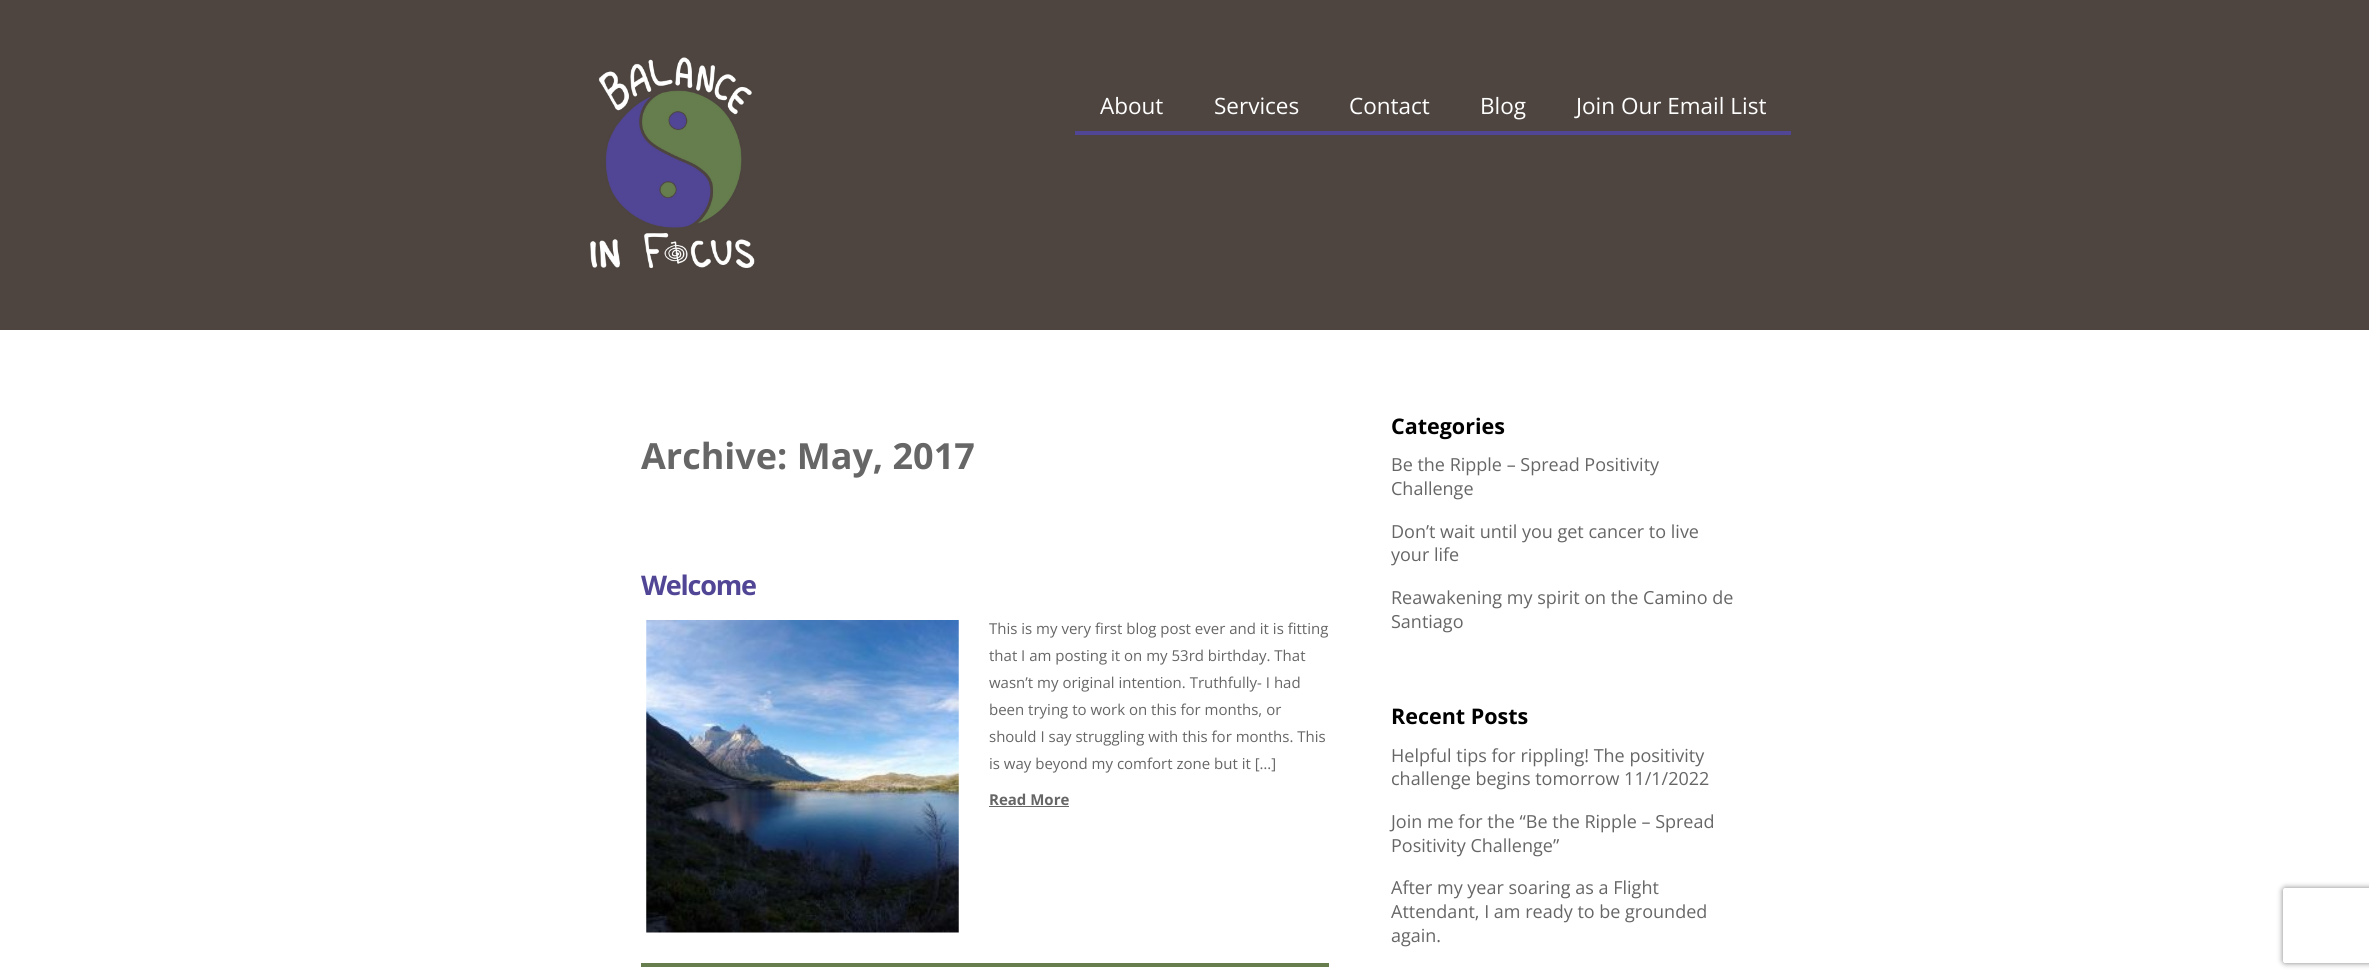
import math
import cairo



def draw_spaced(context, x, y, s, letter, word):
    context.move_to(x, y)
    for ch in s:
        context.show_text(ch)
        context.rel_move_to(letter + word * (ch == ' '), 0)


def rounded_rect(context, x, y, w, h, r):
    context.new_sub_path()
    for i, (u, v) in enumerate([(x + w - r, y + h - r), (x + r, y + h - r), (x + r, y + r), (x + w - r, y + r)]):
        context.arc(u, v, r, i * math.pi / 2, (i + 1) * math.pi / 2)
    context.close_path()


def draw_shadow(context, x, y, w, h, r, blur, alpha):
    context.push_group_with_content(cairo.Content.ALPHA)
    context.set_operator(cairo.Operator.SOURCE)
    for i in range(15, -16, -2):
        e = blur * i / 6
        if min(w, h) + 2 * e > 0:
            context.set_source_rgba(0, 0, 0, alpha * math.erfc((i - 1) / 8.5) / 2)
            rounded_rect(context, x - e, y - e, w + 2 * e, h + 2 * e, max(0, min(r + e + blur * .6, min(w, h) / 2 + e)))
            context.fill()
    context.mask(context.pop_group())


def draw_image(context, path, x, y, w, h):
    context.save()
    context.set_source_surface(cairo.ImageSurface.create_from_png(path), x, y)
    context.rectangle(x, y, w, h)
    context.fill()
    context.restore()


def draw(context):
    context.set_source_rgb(1, 1, 1)
    context.paint()
    context.set_source_rgb(78 / 255, 69 / 255, 64 / 255)
    context.rectangle(0, 0, 2369, 330)
    context.fill()
    draw_image(context, "images/1.png", 590, 57, 165, 212)
    context.set_source_rgb(81 / 255, 70 / 255, 149 / 255)
    context.rectangle(1075, 131, 716, 4)
    context.fill()
    draw_image(context, "images/2.png", 646, 620, 313, 313)
    context.set_source_rgb(102 / 255, 102 / 255, 102 / 255)
    context.rectangle(989, 806, 80, 1)
    context.fill()
    context.set_source_rgb(102 / 255, 126 / 255, 78 / 255)
    context.rectangle(641, 963, 688, 4)
    context.fill()
    context.save()
    context.set_fill_rule(cairo.FillRule.EVEN_ODD)
    context.new_path()
    context.move_to(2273, 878)
    context.line_to(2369, 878)
    context.line_to(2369, 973)
    context.line_to(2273, 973)
    context.close_path()
    context.move_to(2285.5, 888)
    context.line_to(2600.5, 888)
    context.curve_to(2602, 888, 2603, 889, 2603, 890.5)
    context.line_to(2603, 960.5)
    context.curve_to(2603, 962, 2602, 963, 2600.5, 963)
    context.line_to(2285.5, 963)
    context.curve_to(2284, 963, 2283, 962, 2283, 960.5)
    context.line_to(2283, 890.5)
    context.curve_to(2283, 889, 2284, 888, 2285.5, 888)
    context.close_path()
    context.clip()
    context.set_source_rgb(128 / 255, 128 / 255, 128 / 255)
    draw_shadow(context, 2283, 888, 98, 75, 2.5, 3, 1)
    context.restore()
    context.select_font_face("Open Sans")
    context.set_font_size(22.5)
    context.set_source_rgb(1, 1, 1)
    context.move_to(1100, 114)
    context.show_text("About")
    context.move_to(1214, 114)
    context.show_text("Services")
    context.move_to(1349, 114)
    context.show_text("Contact")
    context.move_to(1480, 114)
    context.show_text("Blog")
    context.move_to(1576, 114)
    context.show_text("Join Our Email List")
    context.select_font_face("Open Sans", cairo.FontSlant.NORMAL, cairo.FontWeight.BOLD)
    context.set_font_size(36)
    context.set_source_rgb(102 / 255, 102 / 255, 102 / 255)
    context.move_to(641, 469)
    context.show_text("Archive: May, 2017")
    context.set_font_size(27)
    context.set_source_rgb(81 / 255, 70 / 255, 149 / 255)
    draw_spaced(context, 641, 595, "Welcome", -1.25, 0)
    context.select_font_face("Open Sans")
    context.set_font_size(15)
    context.set_source_rgb(102 / 255, 102 / 255, 102 / 255)
    context.move_to(989, 634)
    context.show_text("This is my very first blog post ever and it is fitting")
    context.move_to(989, 661)
    context.show_text("that I am posting it on my 53rd birthday. That")
    context.move_to(989, 688)
    context.show_text("wasn’t my original intention. Truthfully- I had")
    context.move_to(989, 715)
    context.show_text("been trying to work on this for months, or")
    context.move_to(989, 742)
    context.show_text("should I say struggling with this for months. This")
    context.move_to(989, 769)
    context.show_text("is way beyond my comfort zone but it […]")
    context.select_font_face("Open Sans", cairo.FontSlant.NORMAL, cairo.FontWeight.BOLD)
    context.move_to(989, 805)
    context.show_text("Read More")
    context.set_font_size(21.5)
    context.set_source_rgb(0, 0, 0)
    context.move_to(1391, 434)
    context.show_text("Categories")
    context.select_font_face("Open Sans")
    context.set_font_size(18)
    context.set_source_rgb(102 / 255, 102 / 255, 102 / 255)
    context.move_to(1391, 471)
    context.show_text("Be the Ripple – Spread Positivity")
    context.move_to(1391, 495)
    context.show_text("Challenge")
    context.move_to(1391, 538)
    context.show_text("Don’t wait until you get cancer to live")
    context.move_to(1391, 561)
    context.show_text("your life")
    context.move_to(1391, 604)
    context.show_text("Reawakening my spirit on the Camino de")
    context.move_to(1391, 628)
    context.show_text("Santiago")
    context.select_font_face("Open Sans", cairo.FontSlant.NORMAL, cairo.FontWeight.BOLD)
    context.set_font_size(21.5)
    context.set_source_rgb(0, 0, 0)
    context.move_to(1391, 724)
    context.show_text("Recent Posts")
    context.select_font_face("Open Sans")
    context.set_font_size(18)
    context.set_source_rgb(102 / 255, 102 / 255, 102 / 255)
    context.move_to(1391, 762)
    context.show_text("Helpful tips for rippling! The positivity")
    context.move_to(1391, 785)
    context.show_text("challenge begins tomorrow 11/1/2022")
    context.move_to(1391, 828)
    context.show_text("Join me for the “Be the Ripple – Spread")
    context.move_to(1391, 852)
    context.show_text("Positivity Challenge”")
    context.move_to(1391, 894)
    context.show_text("After my year soaring as a Flight")
    context.move_to(1391, 918)
    context.show_text("Attendant, I am ready to be grounded")
    context.move_to(1391, 942)
    context.show_text("again.")


surface = cairo.ImageSurface(cairo.Format.RGB24, 2369, 980)
context = cairo.Context(surface)
options = cairo.FontOptions()
options.set_hint_metrics(cairo.HintMetrics.OFF)
options.set_hint_style(cairo.HintStyle.NONE)
context.set_font_options(options)
context.set_miter_limit(4)
draw(context)
surface.write_to_png("out.png")
